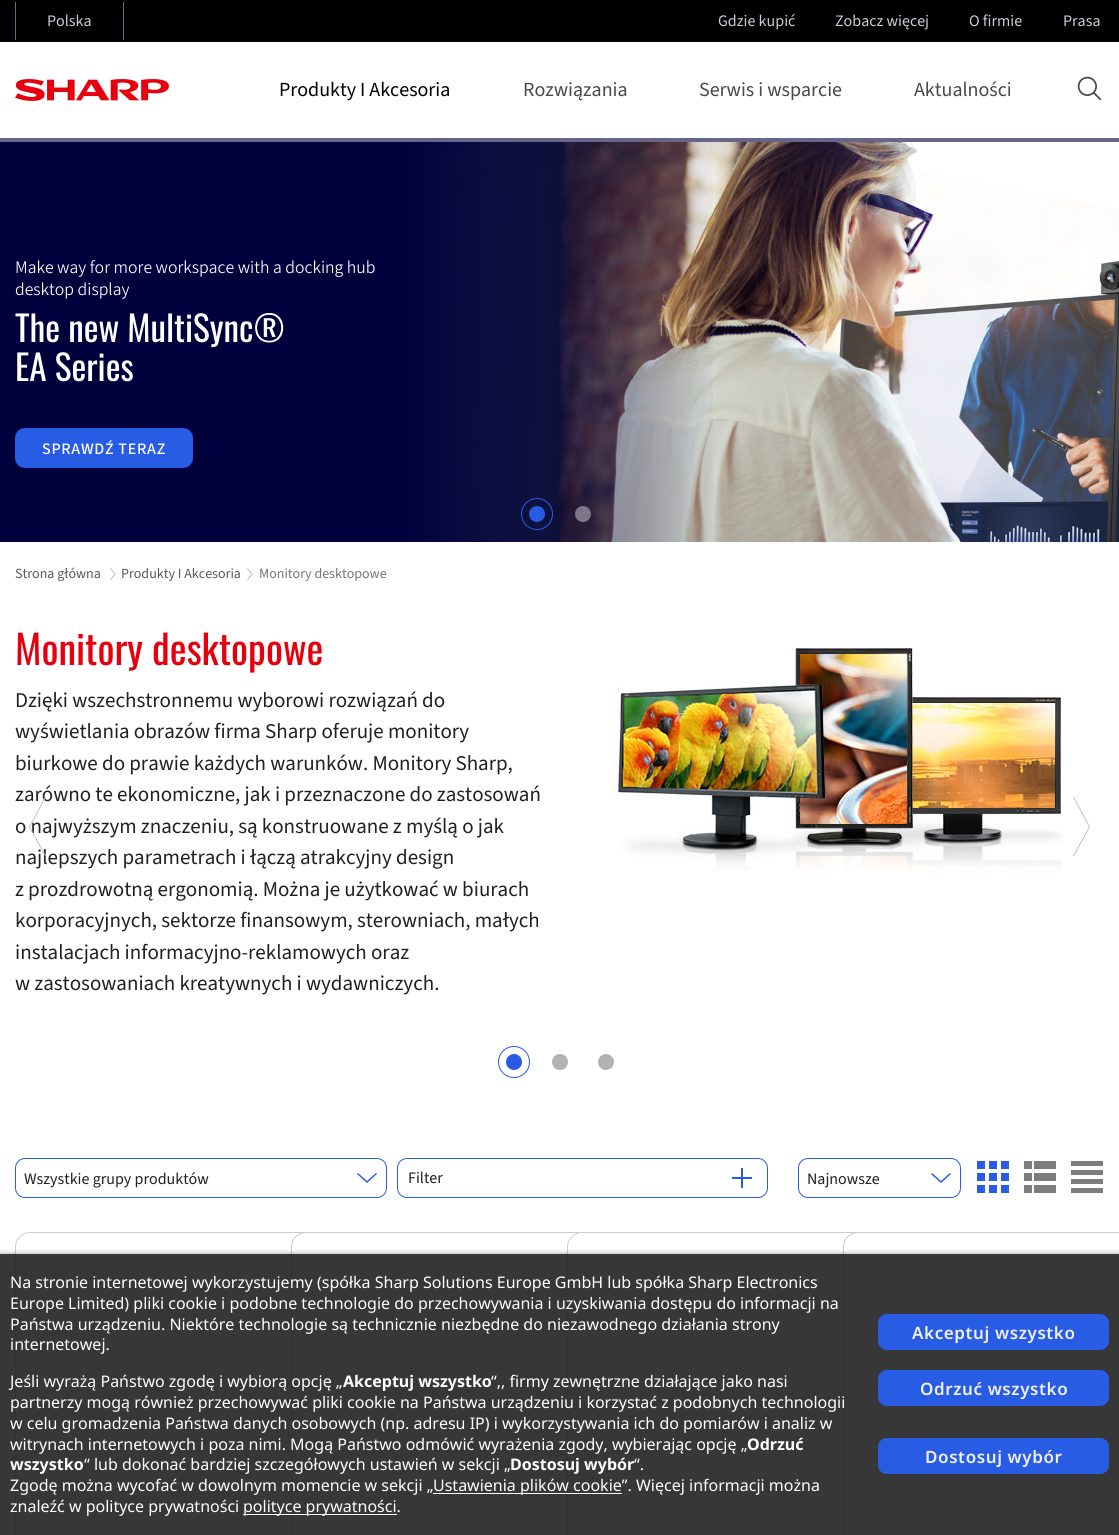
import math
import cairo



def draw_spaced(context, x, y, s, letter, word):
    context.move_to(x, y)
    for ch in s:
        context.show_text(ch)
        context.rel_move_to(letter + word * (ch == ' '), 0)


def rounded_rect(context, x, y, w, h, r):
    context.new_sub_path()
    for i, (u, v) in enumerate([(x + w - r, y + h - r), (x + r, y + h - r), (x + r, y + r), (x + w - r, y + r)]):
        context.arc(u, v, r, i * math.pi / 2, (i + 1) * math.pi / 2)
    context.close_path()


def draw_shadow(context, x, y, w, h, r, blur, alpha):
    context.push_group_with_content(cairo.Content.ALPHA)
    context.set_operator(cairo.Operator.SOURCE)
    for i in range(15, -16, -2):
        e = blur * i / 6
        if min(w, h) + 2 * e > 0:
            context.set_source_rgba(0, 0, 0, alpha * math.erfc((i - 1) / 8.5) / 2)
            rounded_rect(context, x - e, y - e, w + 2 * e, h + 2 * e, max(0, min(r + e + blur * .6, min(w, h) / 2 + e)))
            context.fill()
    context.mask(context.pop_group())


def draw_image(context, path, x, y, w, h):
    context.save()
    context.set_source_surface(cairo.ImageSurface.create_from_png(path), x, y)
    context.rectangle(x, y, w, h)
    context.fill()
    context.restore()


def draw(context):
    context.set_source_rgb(1, 1, 1)
    context.paint()
    context.set_source_rgb(102 / 255, 102 / 255, 139 / 255)
    context.rectangle(0, 138, 1119, 4)
    context.fill()
    context.set_source_rgb(0, 0, 0)
    context.rectangle(0, 0, 1119, 42)
    context.fill()
    context.set_source_rgb(102 / 255, 102 / 255, 139 / 255)
    context.rectangle(15, 2, 1, 38)
    context.fill()
    context.rectangle(123, 2, 1, 38)
    context.fill()
    draw_image(context, "images/1.png", 15, 79, 154, 22)
    draw_image(context, "images/2.png", 1077, 76, 25, 25)
    context.set_source_rgb(0, 0, 61 / 255)
    context.rectangle(0, 142, 384, 400)
    context.fill()
    draw_image(context, "images/3.png", 403, 142, 716, 400)
    gradient = cairo.LinearGradient(384, 342, 720, 342)
    gradient.add_color_stop_rgba(0, 0, 0, 61 / 255, 1)
    gradient.add_color_stop_rgba(0.05, 0, 0, 61 / 255, 1)
    gradient.add_color_stop_rgba(1, 0, 0, 61 / 255, 0)
    context.set_source(gradient)
    context.rectangle(384, 142, 329, 400)
    context.fill()
    context.set_source_rgb(40 / 255, 92 / 255, 228 / 255)
    rounded_rect(context, 15, 428, 178, 40, 10)
    context.fill()
    context.arc(537, 514, 15.5, 0, 2 * math.pi)
    context.set_line_width(1)
    context.stroke()
    context.arc(537, 514, 8, 0, 2 * math.pi)
    context.fill()
    context.set_source_rgba(1, 1, 1, 0.4)
    context.arc(583, 514, 8, 0, 2 * math.pi)
    context.fill()
    draw_image(context, "images/4.png", 614, 647, 448, 224)
    context.set_source_rgb(187 / 255, 187 / 255, 187 / 255)
    context.new_path()
    context.move_to(1073, 797)
    context.line_to(1074, 797)
    context.line_to(1090, 827)
    context.line_to(1074, 856)
    context.line_to(1073, 856)
    context.line_to(1089, 827)
    context.close_path()
    context.fill()
    context.arc(514, 1062, 15.5, 0, 2 * math.pi)
    context.set_source_rgb(40 / 255, 92 / 255, 228 / 255)
    context.stroke()
    context.arc(514, 1062, 8, 0, 2 * math.pi)
    context.fill()
    context.set_source_rgb(178 / 255, 178 / 255, 181 / 255)
    context.arc(560, 1062, 8, 0, 2 * math.pi)
    context.fill()
    context.arc(606, 1062, 8, 0, 2 * math.pi)
    context.fill()
    rounded_rect(context, 15.5, 1158.5, 371, 39, 9.5)
    context.set_source_rgb(40 / 255, 92 / 255, 228 / 255)
    context.stroke()
    context.new_path()
    context.move_to(357, 1174)
    context.line_to(367, 1183)
    context.line_to(377, 1174)
    context.line_to(376, 1173)
    context.line_to(367, 1181)
    context.line_to(358, 1173)
    context.close_path()
    context.fill()
    rounded_rect(context, 397.5, 1158.5, 370, 39, 9.5)
    context.stroke()
    context.rectangle(732, 1177, 20, 2)
    context.fill()
    context.rectangle(741, 1168, 2, 20)
    context.fill()
    rounded_rect(context, 798.5, 1158.5, 162, 39, 9.5)
    context.stroke()
    context.new_path()
    context.move_to(931, 1174)
    context.line_to(941, 1183)
    context.line_to(951, 1174)
    context.line_to(950, 1173)
    context.line_to(941, 1181)
    context.line_to(932, 1173)
    context.close_path()
    context.fill()
    draw_image(context, "images/5.png", 977, 1161, 32, 32)
    draw_image(context, "images/6.png", 1024, 1161, 32, 32)
    draw_image(context, "images/7.png", 1071, 1161, 32, 32)
    rounded_rect(context, 15.5, 1232.5, 641, 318, 14.5)
    context.set_source_rgb(204 / 255, 204 / 255, 216 / 255)
    context.stroke()
    context.set_source_rgb(1, 1, 1)
    rounded_rect(context, 291.5, 1232.5, 641, 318, 14.5)
    context.fill_preserve()
    context.set_source_rgb(204 / 255, 204 / 255, 216 / 255)
    context.stroke()
    context.set_source_rgb(1, 1, 1)
    rounded_rect(context, 567.5, 1232.5, 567, 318, 14.5)
    context.fill_preserve()
    context.set_source_rgb(204 / 255, 204 / 255, 216 / 255)
    context.stroke()
    context.set_source_rgb(1, 1, 1)
    rounded_rect(context, 843.5, 1232.5, 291, 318, 14.5)
    context.fill_preserve()
    context.set_source_rgb(204 / 255, 204 / 255, 216 / 255)
    context.stroke()
    context.save()
    context.rectangle(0, 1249, 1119, 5)
    context.clip()
    context.set_source_rgb(0, 0, 0)
    draw_shadow(context, 0, 1254, 1119, 281, 0, 3, 0.4)
    context.restore()
    context.set_source_rgba(34 / 255, 34 / 255, 34 / 255, 0.9)
    context.rectangle(0, 1254, 1119, 281)
    context.fill()
    context.set_source_rgb(1, 1, 1)
    context.rectangle(433, 1493, 189, 1)
    context.fill()
    context.rectangle(243, 1514, 154, 1)
    context.fill()
    context.set_source_rgb(40 / 255, 92 / 255, 228 / 255)
    rounded_rect(context, 878, 1314, 231, 36, 9)
    context.fill()
    rounded_rect(context, 878, 1370, 231, 36, 9)
    context.fill()
    rounded_rect(context, 878, 1438, 231, 36, 9)
    context.fill()
    context.select_font_face("Source Sans 3")
    context.set_font_size(16)
    context.set_source_rgb(204 / 255, 204 / 255, 216 / 255)
    context.move_to(47, 26)
    context.show_text("Polska")
    context.move_to(718, 26)
    context.show_text("Gdzie kupić")
    context.move_to(835, 26)
    context.show_text("Zobacz więcej")
    context.move_to(969, 26)
    context.show_text("O firmie")
    context.move_to(1063, 26)
    context.show_text("Prasa")
    context.set_font_size(20)
    context.set_source_rgb(0, 0, 0)
    context.move_to(279, 96)
    context.show_text("Produkty I Akcesoria")
    context.set_source_rgb(73 / 255, 73 / 255, 73 / 255)
    context.move_to(523, 96)
    context.show_text("Rozwiązania")
    context.move_to(699, 96)
    context.show_text("Serwis i wsparcie")
    context.move_to(914, 96)
    context.show_text("Aktualności")
    context.select_font_face("Source Sans 3 Light")
    context.set_font_size(17.65)
    context.set_source_rgb(1, 1, 1)
    context.move_to(15, 273)
    context.show_text("Make way for more workspace with a docking hub")
    context.move_to(15, 295)
    context.show_text("desktop display")
    context.select_font_face("Oswald")
    context.set_font_size(35.25)
    context.move_to(15, 342)
    context.show_text("The new MultiSync®")
    context.move_to(15, 381)
    context.show_text("EA Series")
    context.select_font_face("Source Sans 3 Medium")
    context.set_font_size(16)
    draw_spaced(context, 42, 454, "SPRAWDŹ TERAZ", 0.75, 0)
    context.select_font_face("Source Sans 3")
    context.set_font_size(14)
    context.set_source_rgb(89 / 255, 89 / 255, 89 / 255)
    context.move_to(15, 578)
    context.show_text("Strona główna")
    context.select_font_face("Source Sans 3 ExtraLight")
    context.set_font_size(35)
    context.set_source_rgb(195 / 255, 195 / 255, 195 / 255)
    context.move_to(108, 583)
    context.show_text("›")
    context.select_font_face("Source Sans 3")
    context.set_font_size(14)
    context.set_source_rgb(89 / 255, 89 / 255, 89 / 255)
    context.move_to(121, 578)
    context.show_text("Produkty I Akcesoria")
    context.select_font_face("Source Sans 3 ExtraLight")
    context.set_font_size(35)
    context.set_source_rgb(195 / 255, 195 / 255, 195 / 255)
    context.move_to(245, 583)
    context.show_text("›")
    context.select_font_face("Source Sans 3")
    context.set_font_size(14)
    context.set_source_rgb(118 / 255, 118 / 255, 118 / 255)
    context.move_to(259, 578)
    context.show_text("Monitory desktopowe")
    context.select_font_face("Oswald")
    context.set_font_size(40)
    context.set_source_rgb(230 / 255, 0, 13 / 255)
    context.move_to(15, 665)
    context.show_text("Monitory desktopowe")
    context.select_font_face("Source Sans 3")
    context.set_font_size(21)
    context.set_source_rgb(33 / 255, 33 / 255, 33 / 255)
    context.move_to(15, 707)
    context.show_text("Dzięki wszechstronnemu wyborowi rozwiązań do")
    context.move_to(15, 738)
    context.show_text("wyświetlania obrazów firma Sharp oferuje monitory")
    context.move_to(15, 770)
    context.show_text("biurkowe do prawie każdych warunków. Monitory Sharp,")
    context.move_to(15, 801)
    context.show_text("zarówno te ekonomiczne, jak i przeznaczone do zastosowań")
    context.move_to(15, 833)
    context.show_text("o najwyższym znaczeniu, są konstruowane z myślą o jak")
    context.move_to(15, 864)
    context.show_text("najlepszych parametrach i łączą atrakcyjny design")
    context.move_to(15, 896)
    context.show_text("z prozdrowotną ergonomią. Można je użytkować w biurach")
    context.move_to(15, 927)
    context.show_text("korporacyjnych, sektorze finansowym, sterowniach, małych")
    context.move_to(15, 959)
    context.show_text("instalacjach informacyjno-reklamowych oraz")
    context.move_to(15, 990)
    context.show_text("w zastosowaniach kreatywnych i wydawniczych.")
    context.set_source_rgb(187 / 255, 187 / 255, 187 / 255)
    context.new_path()
    context.move_to(46, 797)
    context.line_to(45, 797)
    context.line_to(29, 827)
    context.line_to(45, 856)
    context.line_to(46, 856)
    context.line_to(30, 827)
    context.close_path()
    context.fill()
    context.set_font_size(16)
    context.set_source_rgb(33 / 255, 33 / 255, 33 / 255)
    context.move_to(24, 1184)
    context.show_text("Wszystkie grupy produktów")
    context.move_to(408, 1183)
    context.show_text("Filter")
    context.move_to(807, 1184)
    context.show_text("Najnowsze")
    context.select_font_face("Noto Sans")
    context.set_source_rgb(1, 1, 1)
    context.move_to(10, 1288)
    context.show_text("Na stronie internetowej wykorzystujemy (spółka Sharp Solutions Europe GmbH lub spółka Sharp Electronics")
    context.move_to(10, 1309)
    context.show_text("Europe Limited) pliki cookie i podobne technologie do przechowywania i uzyskiwania dostępu do informacji na")
    context.move_to(10, 1330)
    context.show_text("Państwa urządzeniu. Niektóre technologie są technicznie niezbędne do niezawodnego działania strony")
    context.move_to(10, 1350)
    context.show_text("internetowej.")
    context.move_to(10, 1387)
    context.show_text("Jeśli wyrażą Państwo zgodę i wybiorą opcję „")
    context.select_font_face("Noto Sans", cairo.FontSlant.NORMAL, cairo.FontWeight.BOLD)
    context.move_to(343, 1387)
    context.show_text("Akceptuj wszystko")
    context.select_font_face("Noto Sans")
    context.move_to(491, 1387)
    context.show_text("“,, firmy zewnętrzne działające jako nasi")
    context.move_to(10, 1408)
    context.show_text("partnerzy mogą również przechowywać pliki cookie na Państwa urządzeniu i korzystać z podobnych technologii")
    context.move_to(10, 1429)
    context.show_text("w celu gromadzenia Państwa danych osobowych (np. adresu IP) i wykorzystywania ich do pomiarów i analiz w")
    context.move_to(10, 1450)
    context.show_text("witrynach internetowych i poza nimi. Mogą Państwo odmówić wyrażenia zgody, wybierając opcję „")
    context.select_font_face("Noto Sans", cairo.FontSlant.NORMAL, cairo.FontWeight.BOLD)
    context.move_to(747, 1450)
    context.show_text("Odrzuć")
    context.move_to(10, 1470)
    context.show_text("wszystko")
    context.select_font_face("Noto Sans")
    context.move_to(84, 1470)
    context.show_text("“ lub dokonać bardziej szczegółowych ustawień w sekcji „")
    context.select_font_face("Noto Sans", cairo.FontSlant.NORMAL, cairo.FontWeight.BOLD)
    context.move_to(510, 1470)
    context.show_text("Dostosuj wybór")
    context.select_font_face("Noto Sans")
    context.move_to(634, 1470)
    context.show_text("“.")
    context.move_to(10, 1491)
    context.show_text("Zgodę można wycofać w dowolnym momencie w sekcji „")
    context.move_to(433, 1491)
    context.show_text("Ustawienia plików cookie”. Więcej informacji można")
    context.move_to(10, 1512)
    context.show_text("znaleźć w polityce prywatności")
    context.move_to(243, 1512)
    context.show_text("polityce prywatności.")
    context.select_font_face("Noto Sans SemiBold")
    context.set_font_size(17)
    context.set_source_rgb(240 / 255, 240 / 255, 240 / 255)
    draw_spaced(context, 912, 1339, "Akceptuj wszystko", 0.6, 0)
    draw_spaced(context, 920, 1395, "Odrzuć wszystko", 0.6, 0)
    draw_spaced(context, 925, 1463, "Dostosuj wybór", 0.6, 0)


surface = cairo.ImageSurface(cairo.Format.RGB24, 1119, 1535)
context = cairo.Context(surface)
options = cairo.FontOptions()
options.set_hint_metrics(cairo.HintMetrics.OFF)
options.set_hint_style(cairo.HintStyle.NONE)
context.set_font_options(options)
context.set_miter_limit(4)
draw(context)
surface.write_to_png("out.png")
